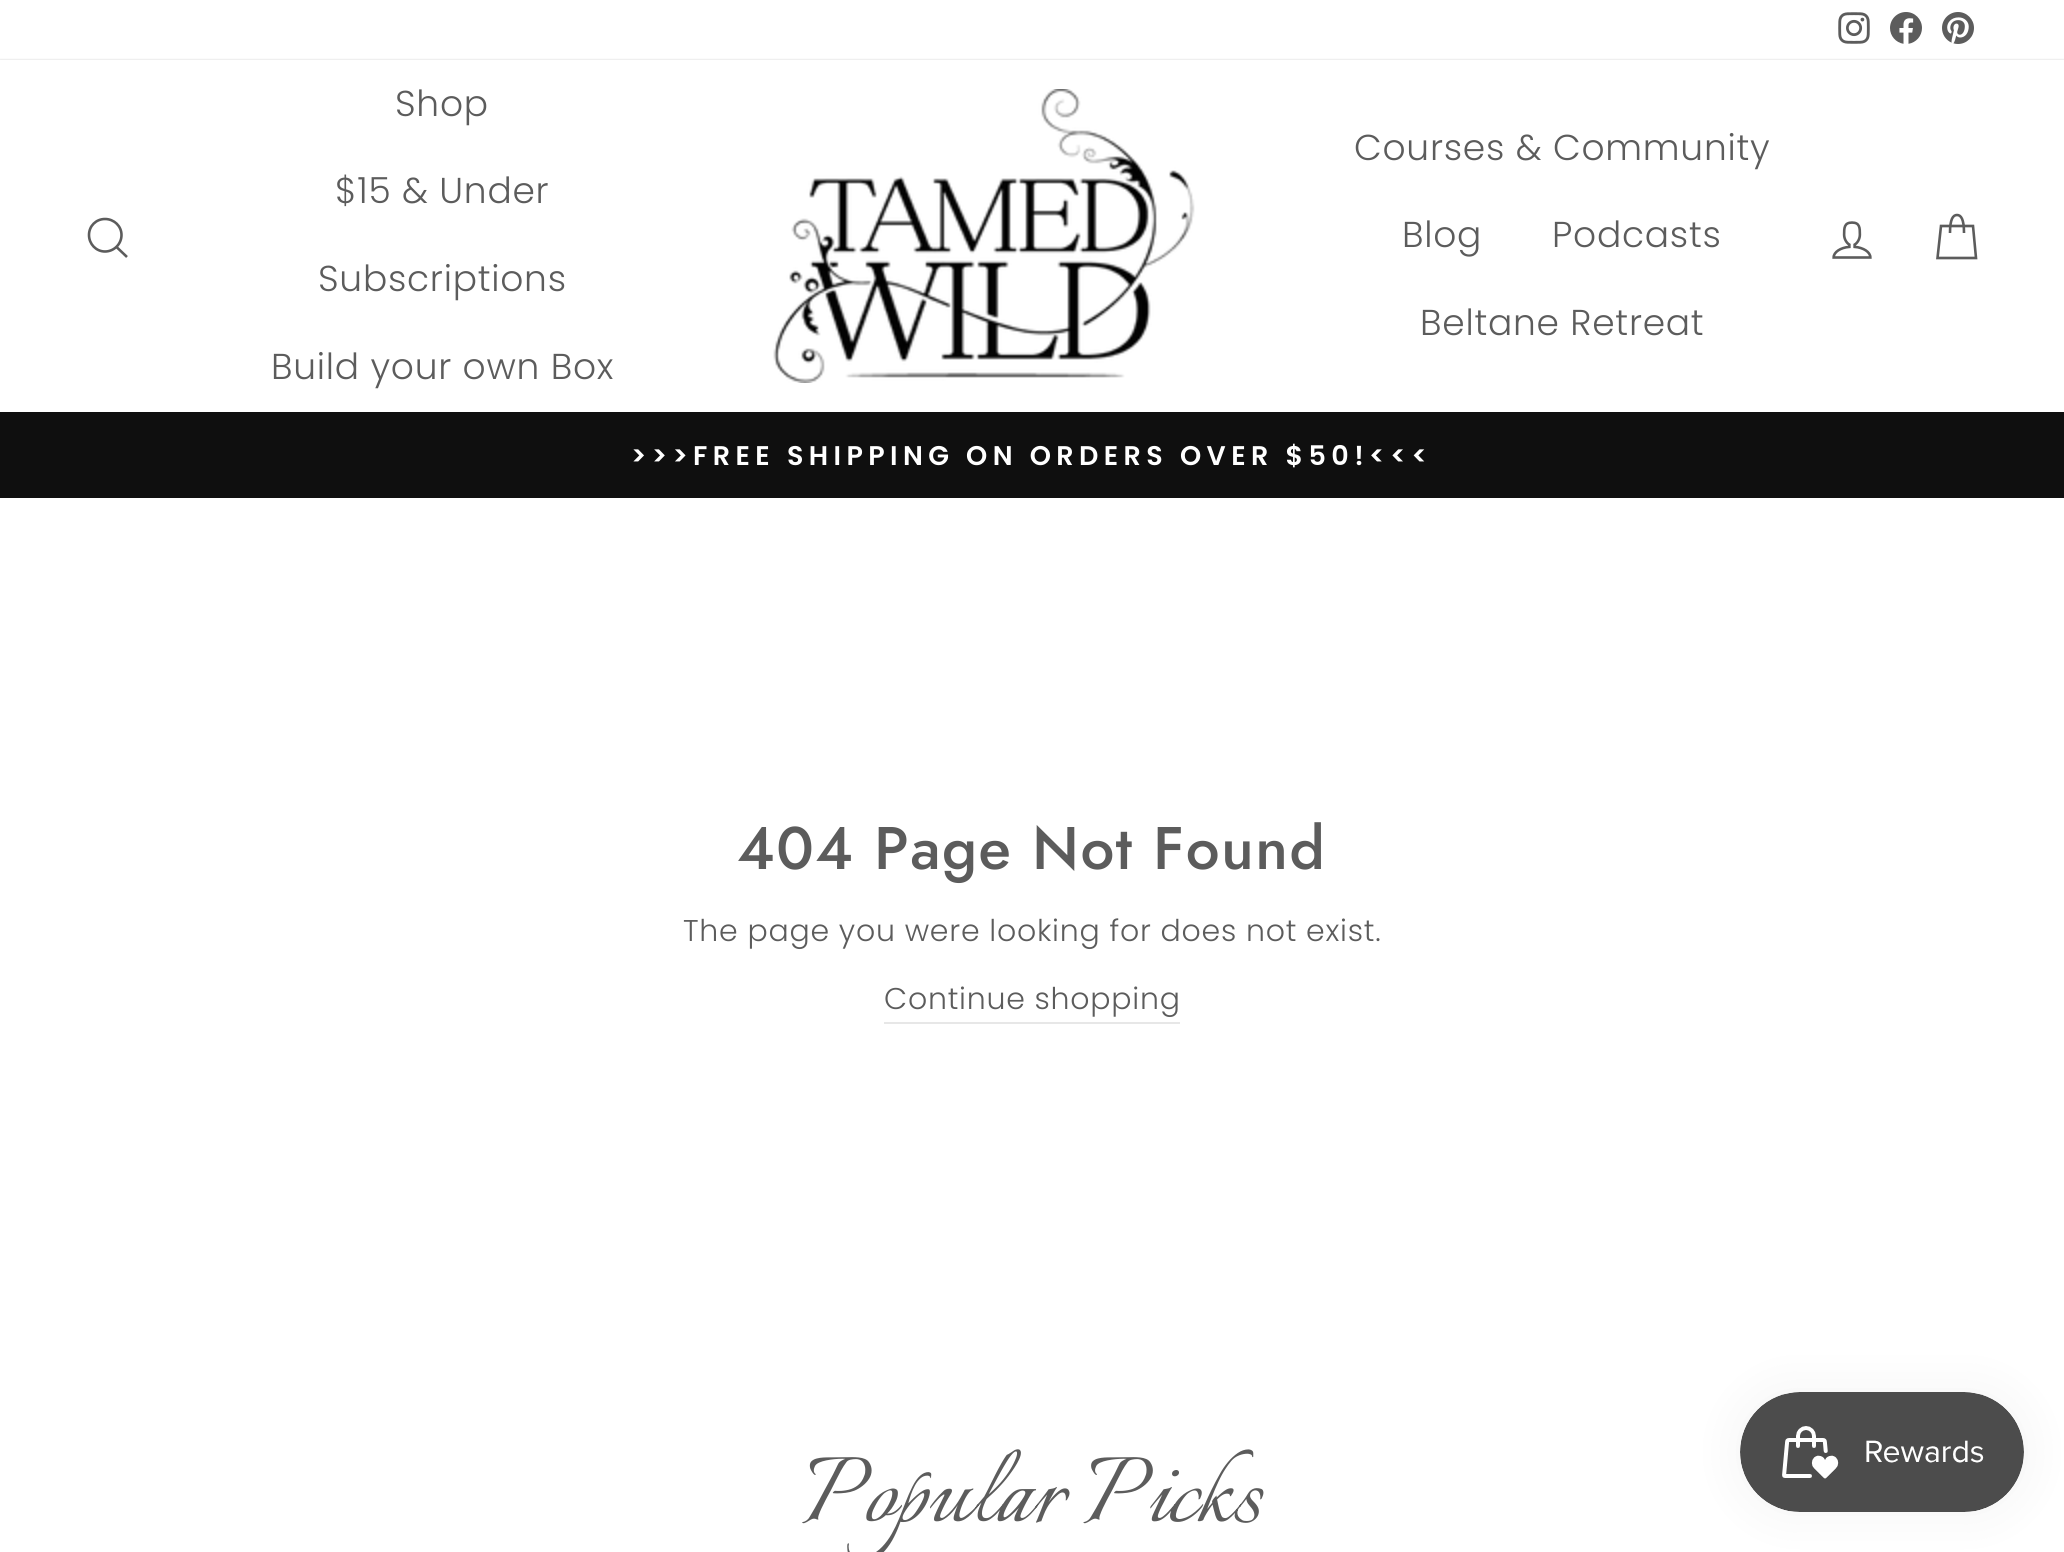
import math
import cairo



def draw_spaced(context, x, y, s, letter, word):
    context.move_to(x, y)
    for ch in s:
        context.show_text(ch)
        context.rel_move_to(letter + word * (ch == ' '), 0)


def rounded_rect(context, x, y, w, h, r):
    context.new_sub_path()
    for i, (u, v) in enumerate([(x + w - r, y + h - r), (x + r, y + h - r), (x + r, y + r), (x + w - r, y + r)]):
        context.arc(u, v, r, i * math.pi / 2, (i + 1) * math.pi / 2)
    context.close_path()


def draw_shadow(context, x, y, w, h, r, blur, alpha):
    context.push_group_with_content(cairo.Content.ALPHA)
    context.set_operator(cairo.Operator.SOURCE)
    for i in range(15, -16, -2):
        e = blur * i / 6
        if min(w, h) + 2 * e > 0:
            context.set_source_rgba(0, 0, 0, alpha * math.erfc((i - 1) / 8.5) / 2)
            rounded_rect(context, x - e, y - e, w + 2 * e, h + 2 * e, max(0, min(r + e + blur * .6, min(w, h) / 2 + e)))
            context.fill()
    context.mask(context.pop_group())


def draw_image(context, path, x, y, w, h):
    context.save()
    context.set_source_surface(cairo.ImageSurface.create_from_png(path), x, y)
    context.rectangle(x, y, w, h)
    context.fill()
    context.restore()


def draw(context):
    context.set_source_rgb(1, 1, 1)
    context.paint()
    draw_image(context, "images/1.png", 1838, 12, 32, 32)
    draw_image(context, "images/2.png", 1890, 12, 32, 32)
    draw_image(context, "images/3.png", 1942, 12, 32, 32)
    context.set_source_rgb(15 / 255, 15 / 255, 15 / 255)
    context.rectangle(0, 412, 2064, 86)
    context.fill()
    context.set_source_rgb(0, 0, 0)
    draw_shadow(context, 0, 60, 2064, 352, 0, 1, 0.2)
    context.set_source_rgb(1, 1, 1)
    context.rectangle(0, 60, 2064, 352)
    context.fill()
    context.new_path()
    context.move_to(121.5, 235)
    context.curve_to(121.5, 244, 114, 251.5, 105, 251.5)
    context.curve_to(96, 251.5, 89, 244, 89, 235)
    context.curve_to(89, 226, 96, 219, 105, 219)
    context.curve_to(114, 219, 121.5, 226, 121.5, 235)
    context.close_path()
    context.move_to(127, 257)
    context.line_to(116.5, 247)
    context.set_source_rgb(92 / 255, 92 / 255, 92 / 255)
    context.set_line_width(2.6)
    context.stroke()
    draw_image(context, "images/4.png", 773, 89, 422, 294)
    draw_image(context, "images/5.png", 1832, 221, 40, 38)
    context.new_path()
    context.move_to(1950, 233)
    context.curve_to(1950, 219, 1953, 215, 1957, 215)
    context.curve_to(1961, 215, 1964, 219, 1964, 233)
    context.move_to(1941, 226)
    context.line_to(1973, 226)
    context.line_to(1976, 258)
    context.line_to(1937.5, 258)
    context.close_path()
    context.stroke()
    context.set_source_rgb(231 / 255, 231 / 255, 231 / 255)
    context.rectangle(884, 1022, 296, 2)
    context.fill()
    context.set_source_rgb(0, 0, 0)
    draw_shadow(context, 1740, 1392, 284, 120, 60, 25, 0.05)
    draw_image(context, "images/6.png", 1740, 1392, 284, 120)
    context.select_font_face("Poppins Light")
    context.set_font_size(36)
    context.set_source_rgb(92 / 255, 92 / 255, 92 / 255)
    draw_spaced(context, 395, 116, "Shop", 0.75, 0)
    draw_spaced(context, 335, 203, "$15 & Under", 0.75, 0)
    draw_spaced(context, 318, 291, "Subscriptions", 0.75, 0)
    draw_spaced(context, 271, 379, "Build your own Box", 0.75, 0)
    draw_spaced(context, 1354, 160, "Courses & Community", 0.75, 0)
    draw_spaced(context, 1402, 247, "Blog", 0.75, 0)
    draw_spaced(context, 1552, 247, "Podcasts", 0.75, 0)
    draw_spaced(context, 1420, 335, "Beltane Retreat", 0.75, 0)
    context.select_font_face("Poppins SemiBold")
    context.set_font_size(27)
    context.set_source_rgb(1, 1, 1)
    draw_spaced(context, 631, 465, ">>>FREE SHIPPING ON ORDERS OVER $50!<<<", 5.4, 0)
    context.select_font_face("Jost Medium")
    context.set_font_size(60)
    context.set_source_rgb(92 / 255, 92 / 255, 92 / 255)
    draw_spaced(context, 737, 869, "404 Page Not Found", 1.5, 0)
    context.select_font_face("Poppins Light")
    context.set_font_size(30)
    draw_spaced(context, 683, 941, "The page you were looking for does not exist.", 0.75, 0)
    draw_spaced(context, 884, 1009, "Continue shopping", 0.75, 0)
    context.select_font_face("Italianno")
    context.set_font_size(117)
    context.move_to(802, 1521)
    context.show_text("Popular Picks")


surface = cairo.ImageSurface(cairo.Format.RGB24, 2064, 1552)
context = cairo.Context(surface)
options = cairo.FontOptions()
options.set_hint_metrics(cairo.HintMetrics.OFF)
options.set_hint_style(cairo.HintStyle.NONE)
context.set_font_options(options)
context.set_miter_limit(4)
draw(context)
surface.write_to_png("out.png")
